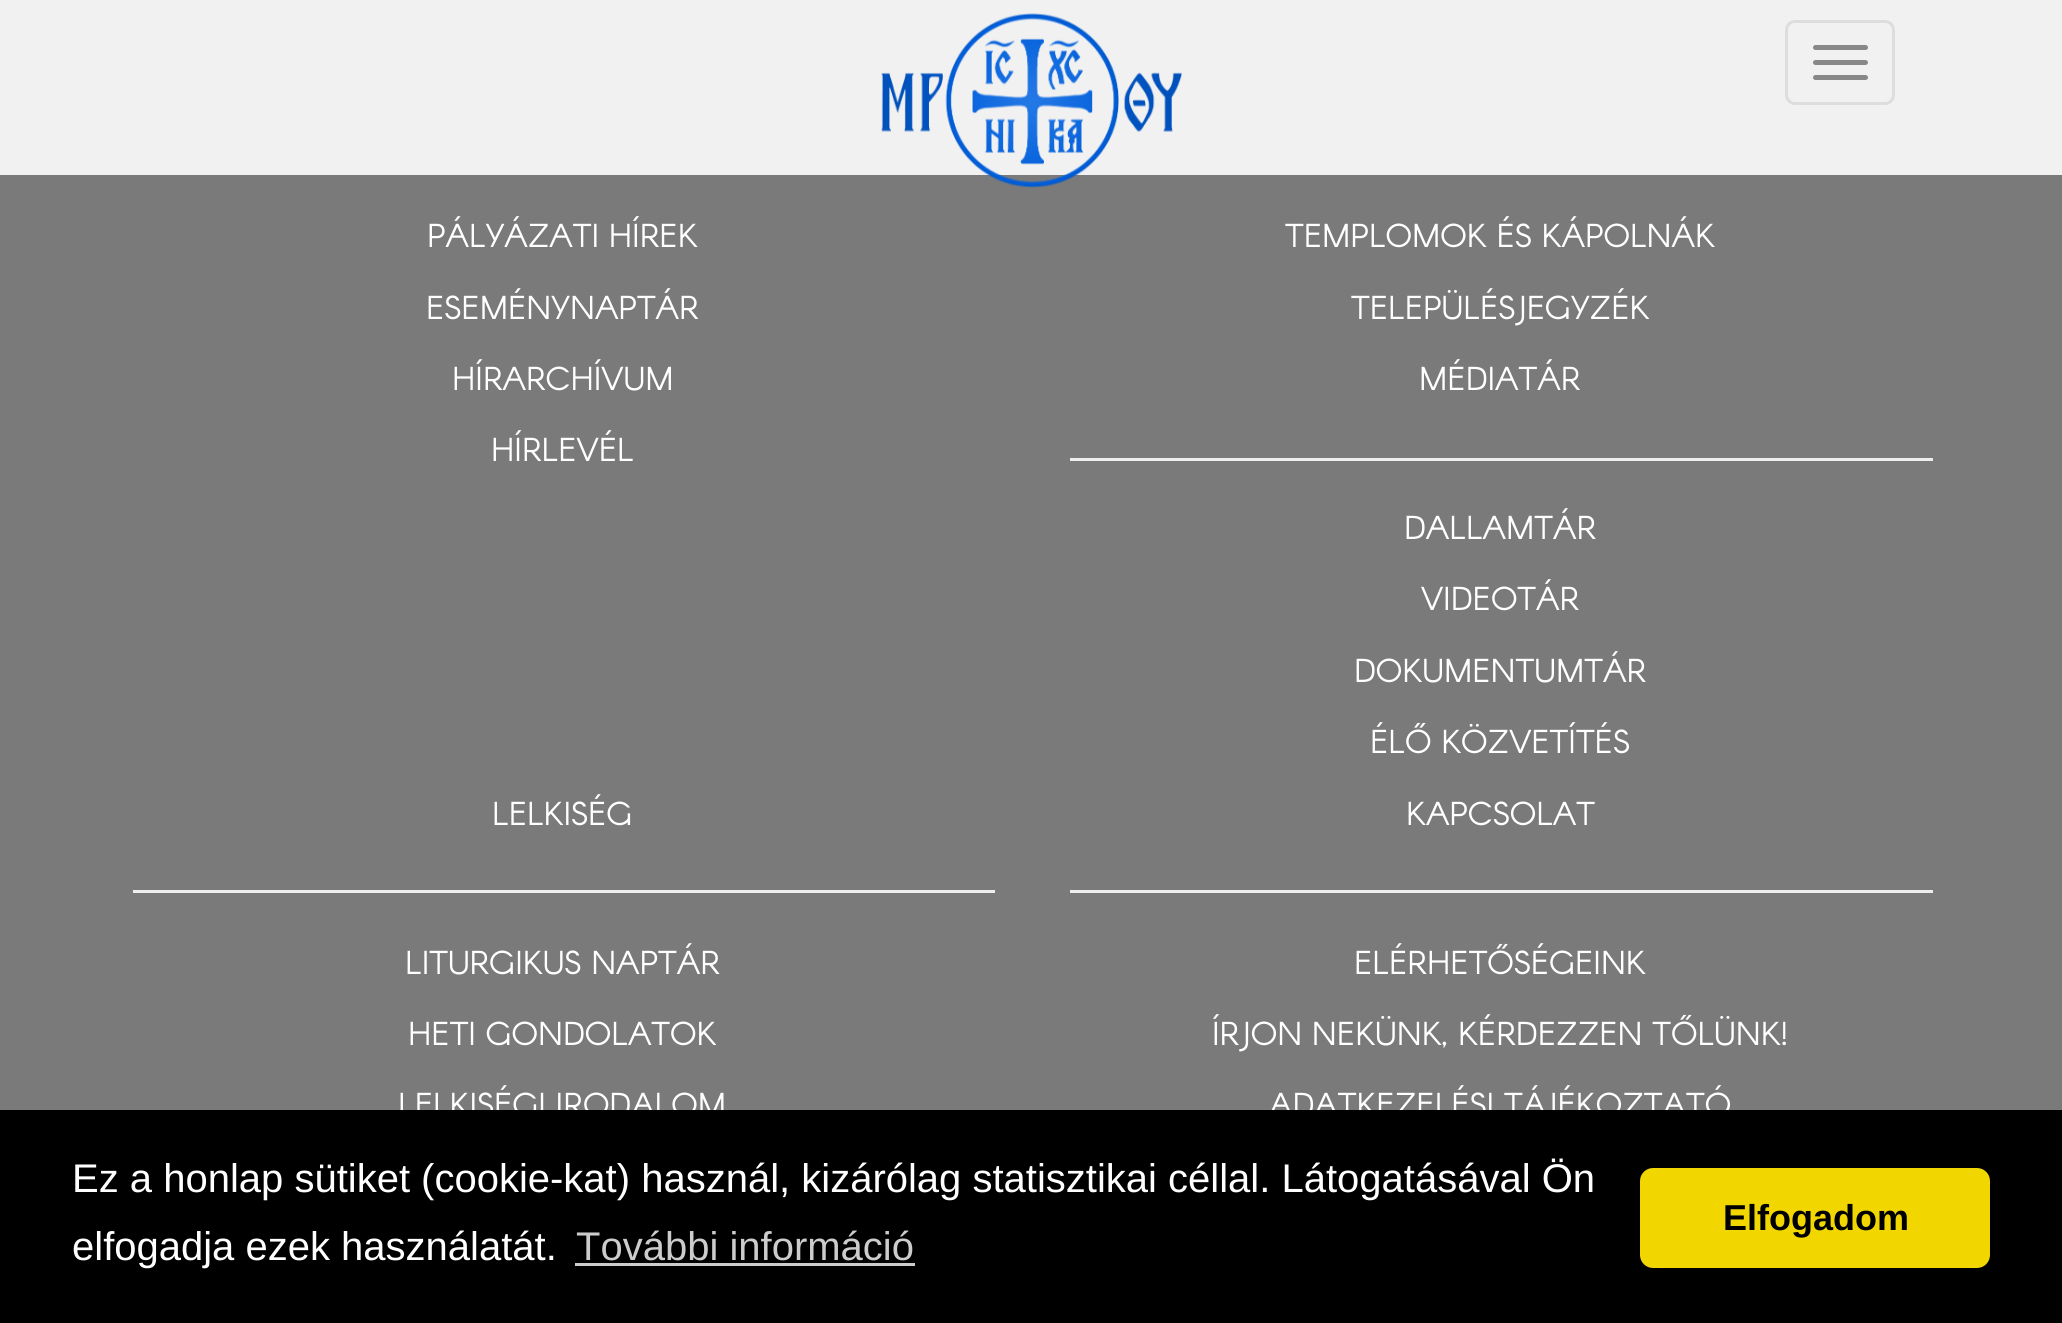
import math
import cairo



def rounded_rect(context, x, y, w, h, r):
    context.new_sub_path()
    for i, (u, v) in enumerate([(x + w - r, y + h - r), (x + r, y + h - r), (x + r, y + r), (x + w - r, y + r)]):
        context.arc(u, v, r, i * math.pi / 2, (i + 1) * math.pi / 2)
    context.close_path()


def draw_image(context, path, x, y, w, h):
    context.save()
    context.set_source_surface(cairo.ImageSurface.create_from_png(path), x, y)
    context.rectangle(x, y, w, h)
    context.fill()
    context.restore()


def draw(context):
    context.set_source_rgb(122 / 255, 122 / 255, 122 / 255)
    context.paint()
    context.set_source_rgb(241 / 255, 241 / 255, 241 / 255)
    context.rectangle(0, 0, 2062, 175)
    context.fill()
    draw_image(context, "images/1.png", 881, 13, 301, 175)
    rounded_rect(context, 1786.5, 21.5, 107, 82, 8.5)
    context.set_source_rgb(221 / 255, 221 / 255, 221 / 255)
    context.set_line_width(3)
    context.stroke()
    context.set_source_rgb(136 / 255, 136 / 255, 136 / 255)
    rounded_rect(context, 1813, 45, 55, 5, 2.5)
    context.fill()
    rounded_rect(context, 1813, 60, 55, 5, 2.5)
    context.fill()
    rounded_rect(context, 1813, 75, 55, 5, 2.5)
    context.fill()
    context.set_source_rgb(238 / 255, 238 / 255, 238 / 255)
    context.rectangle(1070, 458, 863, 3)
    context.fill()
    context.rectangle(133, 890, 862, 3)
    context.fill()
    context.rectangle(1070, 890, 863, 3)
    context.fill()
    context.select_font_face("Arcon")
    context.set_font_size(32.5)
    context.set_source_rgb(1, 1, 1)
    context.move_to(427, 247)
    context.show_text("PÁLYÁZATI HÍREK")
    context.move_to(426, 319)
    context.show_text("ESEMÉNYNAPTÁR")
    context.move_to(452, 390)
    context.show_text("HÍRARCHÍVUM")
    context.move_to(491, 461)
    context.show_text("HÍRLEVÉL")
    context.move_to(1285, 247)
    context.show_text("TEMPLOMOK ÉS KÁPOLNÁK")
    context.move_to(1351, 319)
    context.show_text("TELEPÜLÉSJEGYZÉK")
    context.move_to(1419, 390)
    context.show_text("MÉDIATÁR")
    context.move_to(1404, 539)
    context.show_text("DALLAMTÁR")
    context.move_to(1421, 610)
    context.show_text("VIDEOTÁR")
    context.move_to(1354, 682)
    context.show_text("DOKUMENTUMTÁR")
    context.move_to(1370, 753)
    context.show_text("ÉLŐ KÖZVETÍTÉS")
    context.move_to(492, 825)
    context.show_text("LELKISÉG")
    context.move_to(405, 974)
    context.show_text("LITURGIKUS NAPTÁR")
    context.move_to(408, 1045)
    context.show_text("HETI GONDOLATOK")
    context.move_to(398, 1116)
    context.show_text("LELKISÉGI IRODALOM")
    context.move_to(1406, 825)
    context.show_text("KAPCSOLAT")
    context.move_to(1354, 974)
    context.show_text("ELÉRHETŐSÉGEINK")
    context.move_to(1212, 1045)
    context.show_text("ÍRJON NEKÜNK, KÉRDEZZEN TŐLÜNK!")
    context.move_to(1269, 1116)
    context.show_text("ADATKEZELÉSI TÁJÉKOZTATÓ")
    context.set_source_rgb(0, 0, 0)
    context.rectangle(0, 1110, 2062, 213)
    context.fill()
    context.select_font_face("Liberation Sans")
    context.set_font_size(40)
    context.set_source_rgb(1, 1, 1)
    context.move_to(72, 1192)
    context.show_text("Ez a honlap sütiket (cookie-kat) használ, kizárólag statisztikai céllal. Látogatásával Ön")
    context.move_to(72, 1260)
    context.show_text("elfogadja ezek használatát.")
    context.set_source_rgb(204 / 255, 204 / 255, 204 / 255)
    context.move_to(576, 1260)
    context.show_text("További információ")
    context.rectangle(575, 1263, 340, 3)
    context.fill()
    context.set_source_rgb(241 / 255, 214 / 255, 0)
    rounded_rect(context, 1640, 1168, 350, 100, 13)
    context.fill()
    context.select_font_face("Liberation Sans", cairo.FontSlant.NORMAL, cairo.FontWeight.BOLD)
    context.set_font_size(36)
    context.set_source_rgb(0, 0, 0)
    context.move_to(1723, 1230)
    context.show_text("Elfogadom")


surface = cairo.ImageSurface(cairo.Format.RGB24, 2062, 1323)
context = cairo.Context(surface)
options = cairo.FontOptions()
options.set_hint_metrics(cairo.HintMetrics.OFF)
options.set_hint_style(cairo.HintStyle.NONE)
context.set_font_options(options)
context.set_miter_limit(4)
draw(context)
surface.write_to_png("out.png")
